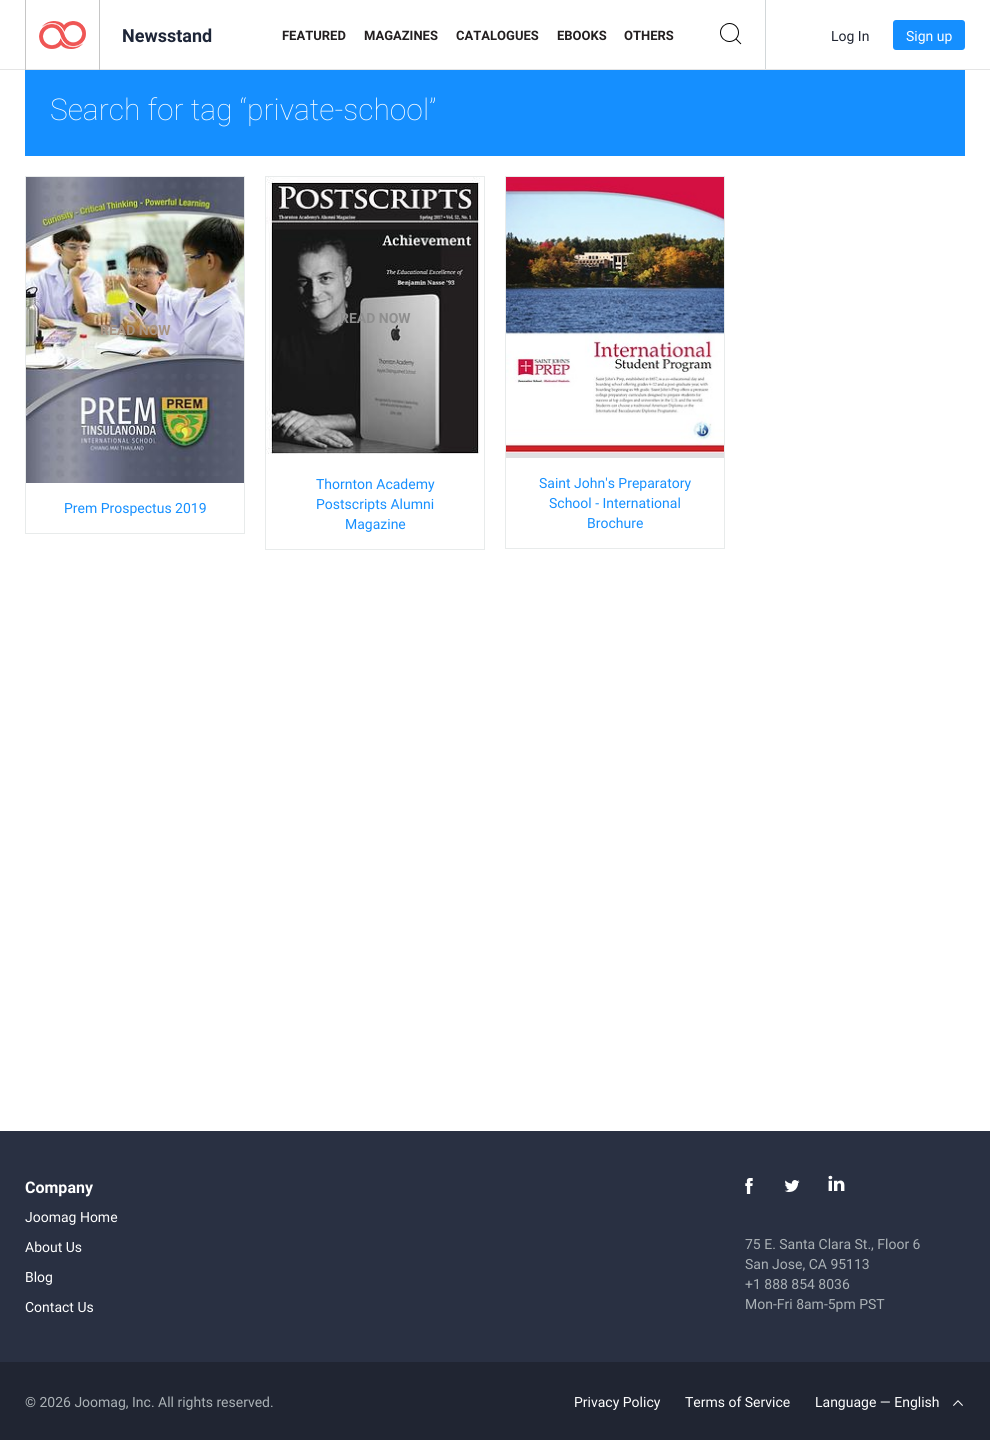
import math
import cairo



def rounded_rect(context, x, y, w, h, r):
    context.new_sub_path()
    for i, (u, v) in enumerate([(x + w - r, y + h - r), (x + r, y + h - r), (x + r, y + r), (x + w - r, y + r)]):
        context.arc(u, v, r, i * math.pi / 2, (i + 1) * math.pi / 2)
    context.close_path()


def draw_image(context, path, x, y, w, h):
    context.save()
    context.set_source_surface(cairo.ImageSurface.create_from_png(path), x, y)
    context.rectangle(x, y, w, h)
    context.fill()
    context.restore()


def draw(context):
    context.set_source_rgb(1, 1, 1)
    context.paint()
    context.set_source_rgb(229 / 255, 229 / 255, 229 / 255)
    context.rectangle(0, 69, 990, 1)
    context.fill()
    context.set_source_rgb(198 / 255, 198 / 255, 198 / 255)
    context.rectangle(99, 0, 1, 70)
    context.fill()
    context.rectangle(25, 0, 1, 70)
    context.fill()
    draw_image(context, "images/1.png", 39, 21, 47, 28)
    context.set_source_rgb(210 / 255, 215 / 255, 217 / 255)
    context.rectangle(765, 0, 1, 69)
    context.fill()
    draw_image(context, "images/2.png", 720, 23, 22, 22)
    context.set_source_rgb(21 / 255, 143 / 255, 1)
    rounded_rect(context, 893, 20, 72, 30, 3)
    context.fill()
    context.rectangle(25, 70, 940, 86)
    context.fill()
    context.rectangle(25.5, 176.5, 219, 357)
    context.set_source_rgb(232 / 255, 235 / 255, 235 / 255)
    context.set_line_width(1)
    context.stroke()
    draw_image(context, "images/3.png", 26, 177, 218, 306)
    context.rectangle(265.5, 176.5, 219, 373)
    context.stroke()
    draw_image(context, "images/4.png", 266, 177, 214, 277)
    context.rectangle(505.5, 176.5, 219, 372)
    context.stroke()
    draw_image(context, "images/5.png", 506, 177, 218, 281)
    context.set_source_rgb(41 / 255, 48 / 255, 66 / 255)
    context.rectangle(0, 1131, 990, 231)
    context.fill()
    draw_image(context, "images/6.png", 745, 1178, 8, 16)
    draw_image(context, "images/7.png", 784, 1180, 16, 12)
    draw_image(context, "images/8.png", 828, 1175, 17, 16)
    context.set_source_rgb(32 / 255, 37 / 255, 50 / 255)
    context.rectangle(0, 1362, 990, 78)
    context.fill()
    draw_image(context, "images/9.png", 953, 1400, 10, 6)
    context.select_font_face("Roboto", cairo.FontSlant.NORMAL, cairo.FontWeight.BOLD)
    context.set_font_size(18)
    context.set_source_rgb(30 / 255, 38 / 255, 56 / 255)
    context.move_to(122, 42)
    context.show_text("Newsstand")
    context.set_font_size(13)
    context.set_source_rgb(35 / 255, 31 / 255, 32 / 255)
    context.move_to(282, 40)
    context.show_text("FEATURED")
    context.move_to(364, 40)
    context.show_text("MAGAZINES")
    context.move_to(456, 40)
    context.show_text("CATALOGUES")
    context.move_to(557, 40)
    context.show_text("EBOOKS")
    context.move_to(624, 40)
    context.show_text("OTHERS")
    context.select_font_face("Roboto")
    context.set_font_size(14)
    context.set_source_rgb(32 / 255, 37 / 255, 50 / 255)
    context.move_to(831, 41)
    context.show_text("Log In")
    context.set_source_rgb(1, 1, 1)
    context.move_to(906, 41)
    context.show_text("Sign up")
    context.select_font_face("Roboto Thin")
    context.set_font_size(30)
    context.move_to(50, 120)
    context.show_text("Search for tag “private-school”")
    context.select_font_face("Roboto", cairo.FontSlant.NORMAL, cairo.FontWeight.BOLD)
    context.set_font_size(14)
    context.set_source_rgb(168 / 255, 148 / 255, 131 / 255)
    context.move_to(100, 335)
    context.show_text("READ NOW")
    context.select_font_face("Roboto")
    context.set_source_rgb(21 / 255, 143 / 255, 1)
    context.move_to(64, 513)
    context.show_text("Prem Prospectus 2019")
    context.select_font_face("Roboto", cairo.FontSlant.NORMAL, cairo.FontWeight.BOLD)
    context.set_source_rgb(142 / 255, 142 / 255, 142 / 255)
    context.move_to(340, 323)
    context.show_text("READ NOW")
    context.select_font_face("Roboto")
    context.set_source_rgb(21 / 255, 143 / 255, 1)
    context.move_to(316, 489)
    context.show_text("Thornton Academy")
    context.move_to(316, 509)
    context.show_text("Postscripts Alumni")
    context.move_to(345, 529)
    context.show_text("Magazine")
    context.move_to(539, 488)
    context.show_text("Saint John's Preparatory")
    context.move_to(549, 508)
    context.show_text("School - International")
    context.move_to(587, 528)
    context.show_text("Brochure")
    context.select_font_face("Roboto", cairo.FontSlant.NORMAL, cairo.FontWeight.BOLD)
    context.set_font_size(16)
    context.set_source_rgb(1, 1, 1)
    context.move_to(25, 1193)
    context.show_text("Company")
    context.select_font_face("Roboto")
    context.set_font_size(14)
    context.move_to(25, 1222)
    context.show_text("Joomag Home")
    context.move_to(25, 1252)
    context.show_text("About Us")
    context.move_to(25, 1282)
    context.show_text("Blog")
    context.move_to(25, 1312)
    context.show_text("Contact Us")
    context.set_source_rgb(171 / 255, 178 / 255, 182 / 255)
    context.move_to(745, 1249)
    context.show_text("75 E. Santa Clara St., Floor 6")
    context.move_to(745, 1269)
    context.show_text("San Jose, CA 95113")
    context.move_to(745, 1289)
    context.show_text("+1 888 854 8036")
    context.move_to(745, 1309)
    context.show_text("Mon-Fri 8am-5pm PST")
    context.move_to(25, 1407)
    context.show_text("© 2026 Joomag, Inc. All rights reserved.")
    context.set_source_rgb(1, 1, 1)
    context.move_to(574, 1407)
    context.show_text("Privacy Policy")
    context.move_to(685, 1407)
    context.show_text("Terms of Service")
    context.move_to(815, 1407)
    context.show_text("Language — English")


surface = cairo.ImageSurface(cairo.Format.RGB24, 990, 1440)
context = cairo.Context(surface)
options = cairo.FontOptions()
options.set_hint_metrics(cairo.HintMetrics.OFF)
options.set_hint_style(cairo.HintStyle.NONE)
context.set_font_options(options)
context.set_miter_limit(4)
draw(context)
surface.write_to_png("out.png")
